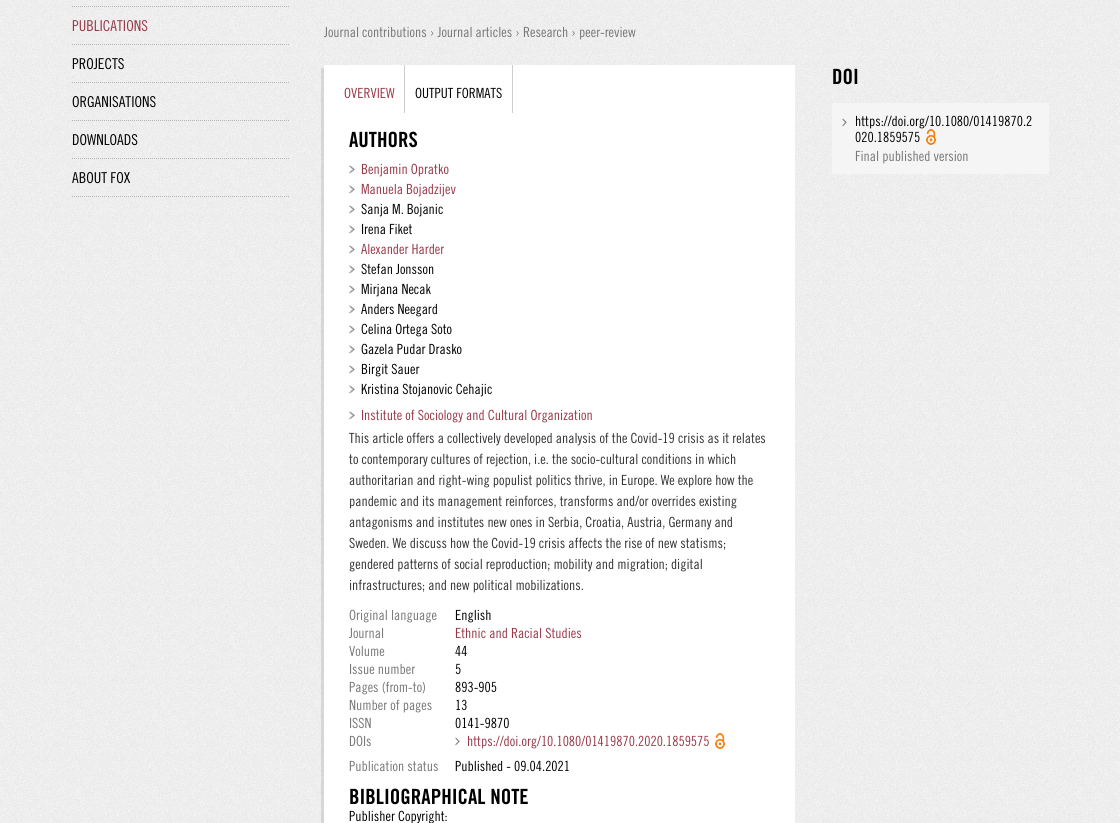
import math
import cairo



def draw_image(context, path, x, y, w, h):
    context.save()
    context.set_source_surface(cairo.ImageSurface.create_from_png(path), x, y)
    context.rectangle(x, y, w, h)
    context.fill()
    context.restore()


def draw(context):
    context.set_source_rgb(1, 1, 1)
    context.paint()
    draw_image(context, "images/1.png", 0, 0, 1120, 823)
    context.new_path()
    context.move_to(72, 196.5)
    context.line_to(289, 196.5)
    context.set_source_rgb(181 / 255, 181 / 255, 181 / 255)
    context.set_line_width(1)
    context.set_dash([1, 1])
    context.stroke()
    context.new_path()
    context.move_to(72, 6.5)
    context.line_to(289, 6.5)
    context.stroke()
    context.new_path()
    context.move_to(72, 44.5)
    context.line_to(289, 44.5)
    context.stroke()
    context.new_path()
    context.move_to(72, 82.5)
    context.line_to(289, 82.5)
    context.stroke()
    context.new_path()
    context.move_to(72, 120.5)
    context.line_to(289, 120.5)
    context.stroke()
    context.new_path()
    context.move_to(72, 158.5)
    context.line_to(289, 158.5)
    context.stroke()
    context.set_source_rgba(0, 0, 0, 0.1)
    context.new_path()
    context.move_to(321, 68)
    context.line_to(321, 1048)
    context.line_to(792, 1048)
    context.line_to(792, 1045)
    context.line_to(324, 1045)
    context.line_to(324, 68)
    context.close_path()
    context.fill()
    context.set_source_rgb(1, 1, 1)
    context.rectangle(324, 65, 471, 758)
    context.fill()
    context.set_source_rgb(205 / 255, 205 / 255, 205 / 255)
    context.rectangle(404, 65, 1, 48)
    context.fill()
    context.rectangle(512, 65, 1, 48)
    context.fill()
    draw_image(context, "images/2.png", 349, 165, 6, 9)
    draw_image(context, "images/2.png", 349, 185, 6, 9)
    draw_image(context, "images/2.png", 349, 205, 6, 9)
    draw_image(context, "images/2.png", 349, 225, 6, 9)
    draw_image(context, "images/2.png", 349, 245, 6, 9)
    draw_image(context, "images/2.png", 349, 265, 6, 9)
    draw_image(context, "images/2.png", 349, 285, 6, 9)
    draw_image(context, "images/2.png", 349, 305, 6, 9)
    draw_image(context, "images/2.png", 349, 325, 6, 9)
    draw_image(context, "images/2.png", 349, 345, 6, 9)
    draw_image(context, "images/2.png", 349, 365, 6, 9)
    draw_image(context, "images/2.png", 349, 385, 6, 9)
    draw_image(context, "images/2.png", 349, 411, 6, 9)
    draw_image(context, "images/3.png", 455, 737, 5, 9)
    draw_image(context, "images/4.png", 715, 733, 10, 16)
    context.set_source_rgb(245 / 255, 245 / 255, 245 / 255)
    context.rectangle(832, 103, 217, 71)
    context.fill()
    draw_image(context, "images/5.png", 842, 118, 5, 9)
    draw_image(context, "images/6.png", 926, 129, 10, 16)
    context.select_font_face("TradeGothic")
    context.set_font_size(15)
    context.set_source_rgb(151 / 255, 57 / 255, 72 / 255)
    context.move_to(72, 31)
    context.show_text("PUBLICATIONS")
    context.set_source_rgb(0, 0, 0)
    context.move_to(72, 69)
    context.show_text("PROJECTS")
    context.move_to(72, 107)
    context.show_text("ORGANISATIONS")
    context.move_to(72, 145)
    context.show_text("DOWNLOADS")
    context.move_to(72, 183)
    context.show_text("ABOUT FOX")
    context.set_font_size(14)
    context.set_source_rgb(119 / 255, 119 / 255, 119 / 255)
    context.move_to(324, 37)
    context.show_text("Journal contributions › Journal articles › Research › peer-review")
    context.set_source_rgb(151 / 255, 57 / 255, 72 / 255)
    context.move_to(344, 98)
    context.show_text("OVERVIEW")
    context.set_source_rgb(0, 0, 0)
    context.move_to(415, 98)
    context.show_text("OUTPUT FORMATS")
    context.select_font_face("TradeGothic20", cairo.FontSlant.NORMAL, cairo.FontWeight.BOLD)
    context.set_font_size(21)
    context.move_to(349, 147)
    context.show_text("AUTHORS")
    context.select_font_face("TradeGothic")
    context.set_font_size(14)
    context.set_source_rgb(151 / 255, 57 / 255, 72 / 255)
    context.move_to(361, 174)
    context.show_text("Benjamin Opratko")
    context.move_to(361, 194)
    context.show_text("Manuela Bojadzijev")
    context.set_source_rgb(0, 0, 0)
    context.move_to(361, 214)
    context.show_text("Sanja M. Bojanic")
    context.move_to(361, 234)
    context.show_text("Irena Fiket")
    context.set_source_rgb(151 / 255, 57 / 255, 72 / 255)
    context.move_to(361, 254)
    context.show_text("Alexander Harder")
    context.set_source_rgb(0, 0, 0)
    context.move_to(361, 274)
    context.show_text("Stefan Jonsson")
    context.move_to(361, 294)
    context.show_text("Mirjana Necak")
    context.move_to(361, 314)
    context.show_text("Anders Neegard")
    context.move_to(361, 334)
    context.show_text("Celina Ortega Soto")
    context.move_to(361, 354)
    context.show_text("Gazela Pudar Drasko")
    context.move_to(361, 374)
    context.show_text("Birgit Sauer")
    context.move_to(361, 394)
    context.show_text("Kristina Stojanovic Cehajic")
    context.set_source_rgb(151 / 255, 57 / 255, 72 / 255)
    context.move_to(361, 420)
    context.show_text("Institute of Sociology and Cultural Organization")
    context.set_source_rgb(51 / 255, 51 / 255, 51 / 255)
    context.move_to(349, 443)
    context.show_text("This article offers a collectively developed analysis of the Covid-19 crisis as it relates")
    context.move_to(349, 464)
    context.show_text("to contemporary cultures of rejection, i.e. the socio-cultural conditions in which")
    context.move_to(349, 485)
    context.show_text("authoritarian and right-wing populist politics thrive, in Europe. We explore how the")
    context.move_to(349, 506)
    context.show_text("pandemic and its management reinforces, transforms and/or overrides existing")
    context.move_to(349, 527)
    context.show_text("antagonisms and institutes new ones in Serbia, Croatia, Austria, Germany and")
    context.move_to(349, 548)
    context.show_text("Sweden. We discuss how the Covid-19 crisis affects the rise of new statisms;")
    context.move_to(349, 569)
    context.show_text("gendered patterns of social reproduction; mobility and migration; digital")
    context.move_to(349, 590)
    context.show_text("infrastructures; and new political mobilizations.")
    context.set_source_rgb(119 / 255, 119 / 255, 119 / 255)
    context.move_to(349, 620)
    context.show_text("Original language")
    context.set_source_rgb(0, 0, 0)
    context.move_to(455, 620)
    context.show_text("English")
    context.set_source_rgb(119 / 255, 119 / 255, 119 / 255)
    context.move_to(349, 638)
    context.show_text("Journal")
    context.set_source_rgb(151 / 255, 57 / 255, 72 / 255)
    context.move_to(455, 638)
    context.show_text("Ethnic and Racial Studies")
    context.set_source_rgb(119 / 255, 119 / 255, 119 / 255)
    context.move_to(349, 656)
    context.show_text("Volume")
    context.set_source_rgb(0, 0, 0)
    context.move_to(455, 656)
    context.show_text("44")
    context.set_source_rgb(119 / 255, 119 / 255, 119 / 255)
    context.move_to(349, 674)
    context.show_text("Issue number")
    context.set_source_rgb(0, 0, 0)
    context.move_to(455, 674)
    context.show_text("5")
    context.set_source_rgb(119 / 255, 119 / 255, 119 / 255)
    context.move_to(349, 692)
    context.show_text("Pages (from-to)")
    context.set_source_rgb(0, 0, 0)
    context.move_to(455, 692)
    context.show_text("893-905")
    context.set_source_rgb(119 / 255, 119 / 255, 119 / 255)
    context.move_to(349, 710)
    context.show_text("Number of pages")
    context.set_source_rgb(0, 0, 0)
    context.move_to(455, 710)
    context.show_text("13")
    context.set_source_rgb(119 / 255, 119 / 255, 119 / 255)
    context.move_to(349, 728)
    context.show_text("ISSN")
    context.set_source_rgb(0, 0, 0)
    context.move_to(455, 728)
    context.show_text("0141-9870")
    context.set_source_rgb(119 / 255, 119 / 255, 119 / 255)
    context.move_to(349, 746)
    context.show_text("DOIs")
    context.set_source_rgb(151 / 255, 57 / 255, 72 / 255)
    context.move_to(467, 746)
    context.show_text("https://doi.org/10.1080/01419870.2020.1859575")
    context.set_source_rgb(119 / 255, 119 / 255, 119 / 255)
    context.move_to(349, 771)
    context.show_text("Publication status")
    context.set_source_rgb(0, 0, 0)
    context.move_to(455, 771)
    context.show_text("Published - 09.04.2021")
    context.select_font_face("TradeGothic20", cairo.FontSlant.NORMAL, cairo.FontWeight.BOLD)
    context.set_font_size(21)
    context.move_to(349, 804)
    context.show_text("BIBLIOGRAPHICAL NOTE")
    context.select_font_face("TradeGothic")
    context.set_font_size(14)
    context.move_to(349, 821)
    context.show_text("Publisher Copyright:")
    context.select_font_face("TradeGothic20", cairo.FontSlant.NORMAL, cairo.FontWeight.BOLD)
    context.set_font_size(21)
    context.move_to(832, 84)
    context.show_text("DOI")
    context.select_font_face("TradeGothic")
    context.set_font_size(14)
    context.move_to(855, 126)
    context.show_text("https://doi.org/10.1080/01419870.2")
    context.move_to(855, 142)
    context.show_text("020.1859575")
    context.set_source_rgb(119 / 255, 119 / 255, 119 / 255)
    context.move_to(855, 161)
    context.show_text("Final published version")


surface = cairo.ImageSurface(cairo.Format.RGB24, 1120, 823)
context = cairo.Context(surface)
options = cairo.FontOptions()
options.set_hint_metrics(cairo.HintMetrics.OFF)
options.set_hint_style(cairo.HintStyle.NONE)
context.set_font_options(options)
context.set_miter_limit(4)
draw(context)
surface.write_to_png("out.png")
